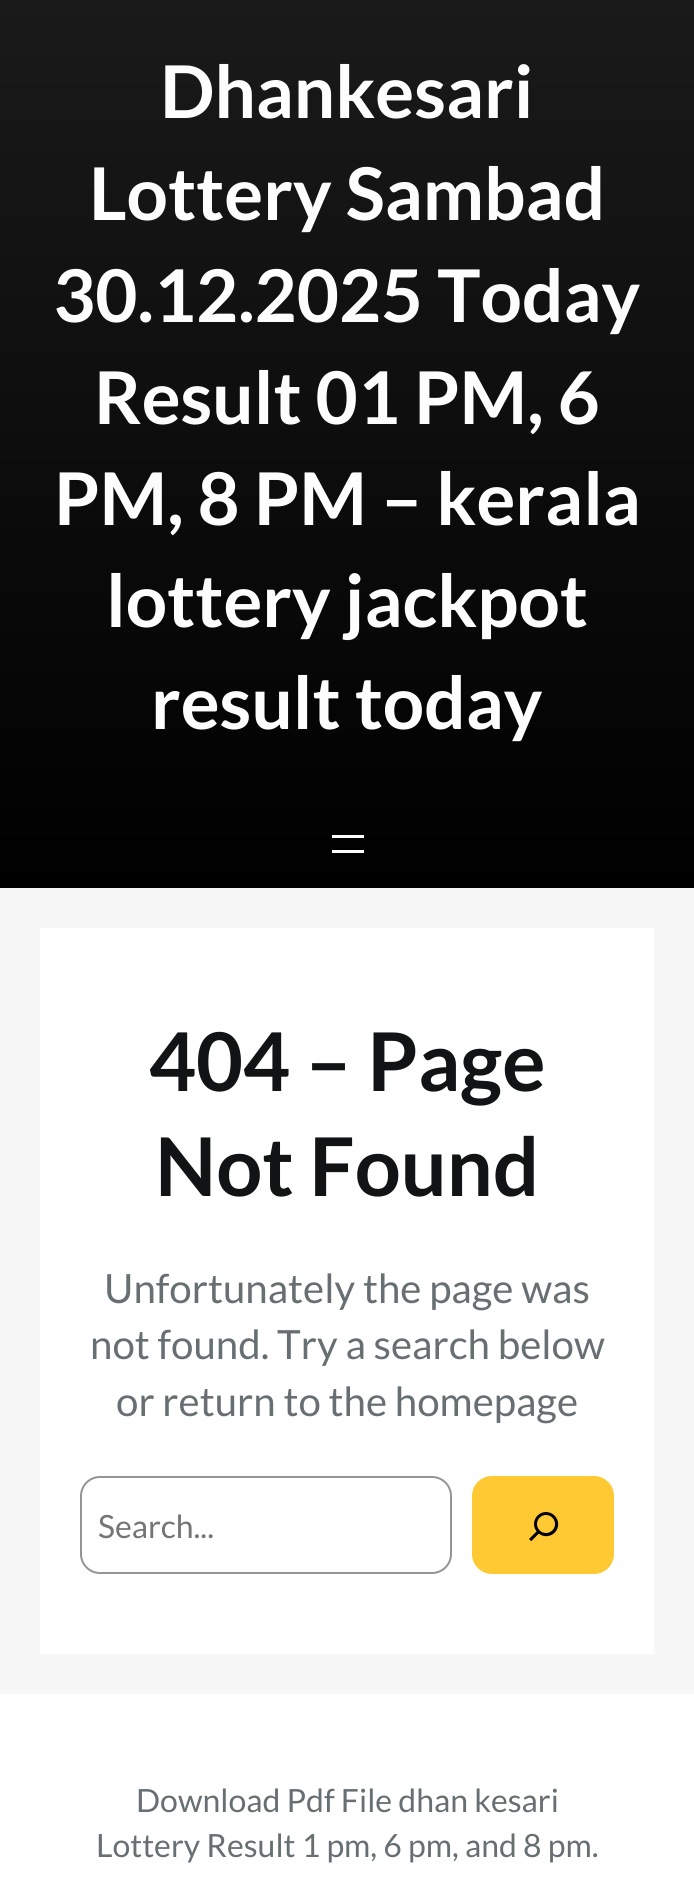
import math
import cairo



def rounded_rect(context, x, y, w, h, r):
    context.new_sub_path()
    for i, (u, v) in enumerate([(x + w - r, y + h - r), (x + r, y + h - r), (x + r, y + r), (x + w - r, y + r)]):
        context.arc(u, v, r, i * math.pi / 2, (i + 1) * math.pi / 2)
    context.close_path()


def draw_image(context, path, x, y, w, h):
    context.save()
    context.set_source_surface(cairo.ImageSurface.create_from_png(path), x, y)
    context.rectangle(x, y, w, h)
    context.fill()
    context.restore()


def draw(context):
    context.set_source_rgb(1, 1, 1)
    context.paint()
    gradient = cairo.LinearGradient(347, 888, 347, 0)
    gradient.add_color_stop_rgba(0, 0, 0, 0, 1)
    gradient.add_color_stop_rgba(1, 26 / 255, 26 / 255, 26 / 255, 1)
    context.set_source(gradient)
    context.rectangle(0, 0, 694, 888)
    context.fill()
    context.set_source_rgb(253 / 255, 253 / 255, 253 / 255)
    context.rectangle(332, 835, 32, 3)
    context.fill()
    context.rectangle(332, 850, 32, 3)
    context.fill()
    context.set_source_rgb(247 / 255, 247 / 255, 247 / 255)
    context.rectangle(0, 888, 694, 806)
    context.fill()
    context.set_source_rgb(1, 1, 1)
    context.rectangle(40, 928, 614, 726)
    context.fill()
    rounded_rect(context, 81, 1477, 370, 96, 19)
    context.set_source_rgb(148 / 255, 148 / 255, 148 / 255)
    context.stroke()
    context.set_source_rgb(1, 201 / 255, 52 / 255)
    rounded_rect(context, 472, 1476, 142, 98, 20)
    context.fill()
    draw_image(context, "images/1.png", 529, 1512, 30, 30)
    context.select_font_face("Lato", cairo.FontSlant.NORMAL, cairo.FontWeight.BOLD)
    context.set_font_size(72.75)
    context.set_source_rgb(253 / 255, 253 / 255, 253 / 255)
    context.move_to(160, 118)
    context.show_text("Dhankesari")
    context.move_to(89, 220)
    context.show_text("Lottery Sambad")
    context.move_to(53, 322)
    context.show_text("30.12.2025 Today")
    context.move_to(94, 424)
    context.show_text("Result 01 PM, 6")
    context.move_to(54, 525)
    context.show_text("PM, 8 PM – kerala")
    context.move_to(106, 627)
    context.show_text("lottery jackpot")
    context.move_to(151, 729)
    context.show_text("result today")
    context.set_font_size(81)
    context.set_source_rgb(17 / 255, 19 / 255, 20 / 255)
    context.move_to(149, 1091)
    context.show_text("404 – Page")
    context.move_to(155, 1196)
    context.show_text("Not Found")
    context.select_font_face("Lato")
    context.set_font_size(40.25)
    context.set_source_rgb(103 / 255, 111 / 255, 114 / 255)
    context.move_to(104, 1303)
    context.show_text("Unfortunately the page was")
    context.move_to(90, 1359)
    context.show_text("not found. Try a search below")
    context.move_to(116, 1416)
    context.show_text("or return to the homepage")
    context.set_font_size(32)
    context.set_source_rgb(117 / 255, 117 / 255, 117 / 255)
    context.move_to(98, 1538)
    context.show_text("Search...")
    context.set_source_rgb(103 / 255, 111 / 255, 114 / 255)
    context.move_to(136, 1812)
    context.show_text("Download Pdf File dhan kesari")
    context.move_to(96, 1857)
    context.show_text("Lottery Result 1 pm, 6 pm, and 8 pm.")


surface = cairo.ImageSurface(cairo.Format.RGB24, 694, 1886)
context = cairo.Context(surface)
options = cairo.FontOptions()
options.set_hint_metrics(cairo.HintMetrics.OFF)
options.set_hint_style(cairo.HintStyle.NONE)
context.set_font_options(options)
context.set_miter_limit(4)
draw(context)
surface.write_to_png("out.png")
